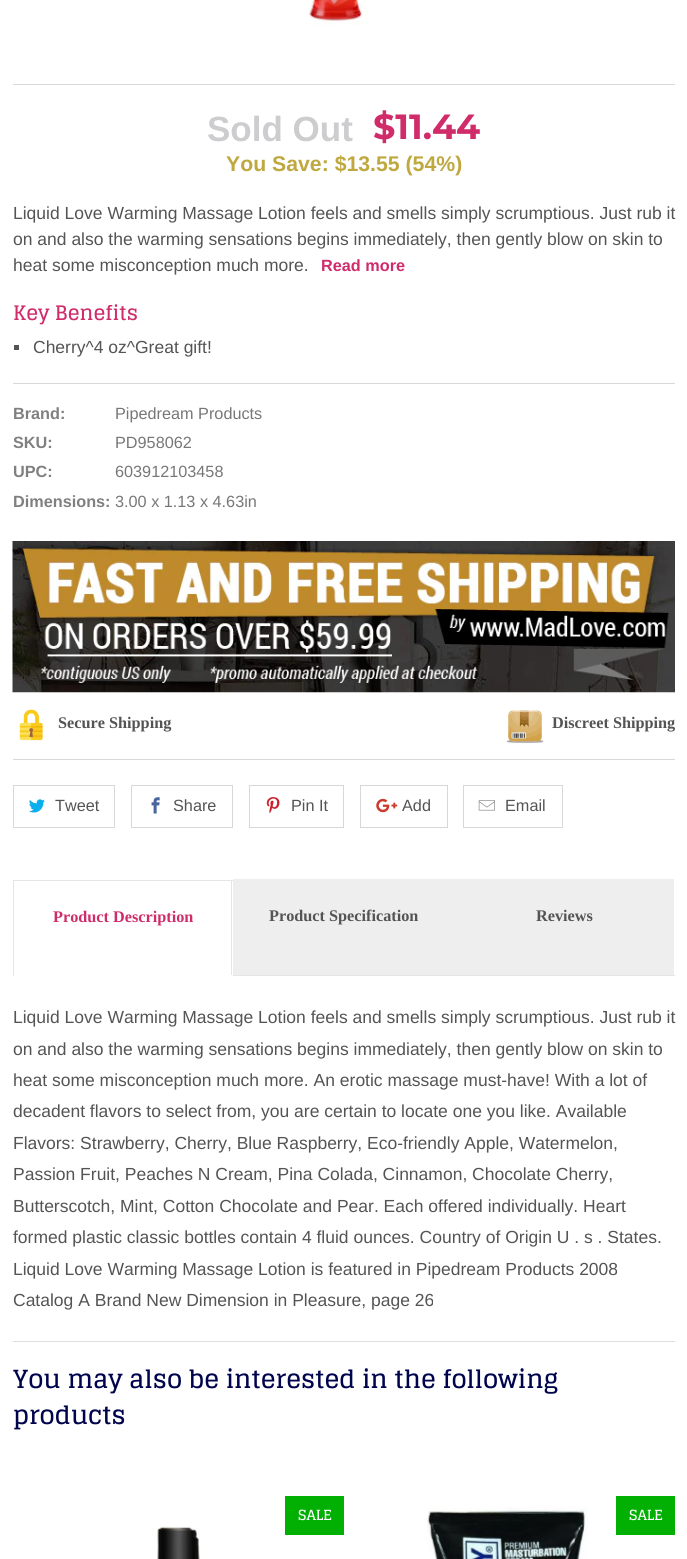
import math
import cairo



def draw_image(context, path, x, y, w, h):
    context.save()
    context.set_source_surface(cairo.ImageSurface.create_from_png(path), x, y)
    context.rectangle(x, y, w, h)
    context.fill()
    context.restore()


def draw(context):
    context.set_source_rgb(1, 1, 1)
    context.paint()
    draw_image(context, "images/1.png", 307, 0, 61, 26)
    context.set_source_rgb(216 / 255, 216 / 255, 216 / 255)
    context.rectangle(13, 84, 662, 1)
    context.fill()
    context.set_source_rgb(84 / 255, 84 / 255, 84 / 255)
    context.rectangle(14, 345, 5, 5)
    context.fill()
    context.set_source_rgb(216 / 255, 216 / 255, 216 / 255)
    context.rectangle(13, 383, 662, 1)
    context.fill()
    draw_image(context, "images/2.png", 12, 541, 663, 152)
    draw_image(context, "images/3.png", 19, 709, 24, 32)
    draw_image(context, "images/4.png", 506, 710, 38, 33)
    context.rectangle(13, 759, 662, 1)
    context.fill()
    context.rectangle(13.5, 785.5, 101, 42)
    context.set_line_width(1)
    context.stroke()
    draw_image(context, "images/5.png", 29, 799, 16, 14)
    context.rectangle(131.5, 785.5, 101, 42)
    context.stroke()
    draw_image(context, "images/6.png", 151, 797, 9, 17)
    context.rectangle(249.5, 785.5, 94, 42)
    context.stroke()
    draw_image(context, "images/7.png", 266, 797, 14, 17)
    context.rectangle(360.5, 785.5, 87, 42)
    context.stroke()
    draw_image(context, "images/8.png", 376, 798, 22, 15)
    context.rectangle(463.5, 785.5, 99, 42)
    context.stroke()
    draw_image(context, "images/9.png", 478, 800, 17, 11)
    context.set_source_rgb(229 / 255, 229 / 255, 229 / 255)
    context.rectangle(233, 975, 442, 1)
    context.fill()
    context.rectangle(13, 880, 220, 1)
    context.fill()
    context.rectangle(231, 880, 1, 96)
    context.fill()
    context.set_source_rgb(1, 1, 1)
    context.rectangle(231, 975, 2, 1)
    context.fill()
    context.set_source_rgb(229 / 255, 229 / 255, 229 / 255)
    context.rectangle(13, 880, 1, 96)
    context.fill()
    context.set_source_rgb(238 / 255, 238 / 255, 238 / 255)
    context.rectangle(233, 879, 441, 96)
    context.fill()
    context.set_source_rgb(221 / 255, 221 / 255, 221 / 255)
    context.rectangle(13, 1341, 662, 1)
    context.fill()
    context.set_source_rgb(2 / 255, 176 / 255, 4 / 255)
    context.rectangle(285, 1496, 59, 39)
    context.fill()
    draw_image(context, "images/10.png", 157, 1526, 43, 33)
    draw_image(context, "images/11.png", 427, 1507, 161, 52)
    context.rectangle(616, 1496, 59, 39)
    context.fill()
    context.select_font_face("Liberation Sans", cairo.FontSlant.NORMAL, cairo.FontWeight.BOLD)
    context.set_font_size(35)
    context.set_source_rgb(205 / 255, 205 / 255, 207 / 255)
    context.move_to(207, 141)
    context.show_text("Sold Out")
    context.select_font_face("Montserrat", cairo.FontSlant.NORMAL, cairo.FontWeight.BOLD)
    context.set_source_rgb(207 / 255, 44 / 255, 105 / 255)
    context.move_to(373, 139)
    context.show_text("$11.44")
    context.select_font_face("Liberation Sans", cairo.FontSlant.NORMAL, cairo.FontWeight.BOLD)
    context.set_font_size(21.25)
    context.set_source_rgb(191 / 255, 168 / 255, 64 / 255)
    context.move_to(226, 171)
    context.show_text("You Save: $13.55 (54%)")
    context.select_font_face("Liberation Sans")
    context.set_font_size(17.5)
    context.set_source_rgb(84 / 255, 84 / 255, 84 / 255)
    context.move_to(13, 219)
    context.show_text("Liquid Love Warming Massage Lotion feels and smells simply scrumptious. Just rub it")
    context.move_to(13, 245)
    context.show_text("on and also the warming sensations begins immediately, then gently blow on skin to")
    context.move_to(13, 271)
    context.show_text("heat some misconception much more.")
    context.select_font_face("Liberation Sans", cairo.FontSlant.NORMAL, cairo.FontWeight.BOLD)
    context.set_font_size(16.25)
    context.set_source_rgb(207 / 255, 44 / 255, 105 / 255)
    context.move_to(321, 271)
    context.show_text("Read more")
    context.select_font_face("Glegoo", cairo.FontSlant.NORMAL, cairo.FontWeight.BOLD)
    context.set_font_size(20)
    context.move_to(13, 320)
    context.show_text("Key Benefits")
    context.select_font_face("Liberation Sans")
    context.set_font_size(17.5)
    context.set_source_rgb(84 / 255, 84 / 255, 84 / 255)
    context.move_to(33, 353)
    context.show_text("Cherry^4 oz^Great gift!")
    context.select_font_face("Liberation Sans", cairo.FontSlant.NORMAL, cairo.FontWeight.BOLD)
    context.set_font_size(16.25)
    context.set_source_rgb(128 / 255, 128 / 255, 128 / 255)
    context.move_to(13, 419)
    context.show_text("Brand:")
    context.select_font_face("Liberation Sans")
    context.set_source_rgb(119 / 255, 119 / 255, 119 / 255)
    context.move_to(115, 419)
    context.show_text("Pipedream Products")
    context.select_font_face("Liberation Sans", cairo.FontSlant.NORMAL, cairo.FontWeight.BOLD)
    context.set_source_rgb(128 / 255, 128 / 255, 128 / 255)
    context.move_to(13, 448)
    context.show_text("SKU:")
    context.select_font_face("Liberation Sans")
    context.set_source_rgb(119 / 255, 119 / 255, 119 / 255)
    context.move_to(115, 448)
    context.show_text("PD958062")
    context.select_font_face("Liberation Sans", cairo.FontSlant.NORMAL, cairo.FontWeight.BOLD)
    context.set_source_rgb(128 / 255, 128 / 255, 128 / 255)
    context.move_to(13, 477)
    context.show_text("UPC:")
    context.select_font_face("Liberation Sans")
    context.set_source_rgb(119 / 255, 119 / 255, 119 / 255)
    context.move_to(115, 477)
    context.show_text("603912103458")
    context.select_font_face("Liberation Sans", cairo.FontSlant.NORMAL, cairo.FontWeight.BOLD)
    context.set_source_rgb(128 / 255, 128 / 255, 128 / 255)
    context.move_to(13, 507)
    context.show_text("Dimensions:")
    context.select_font_face("Liberation Sans")
    context.set_source_rgb(119 / 255, 119 / 255, 119 / 255)
    context.move_to(115, 507)
    context.show_text("3.00 x 1.13 x 4.63in")
    context.select_font_face("Liberation Serif", cairo.FontSlant.NORMAL, cairo.FontWeight.BOLD)
    context.set_source_rgb(84 / 255, 84 / 255, 84 / 255)
    context.move_to(58, 728)
    context.show_text("Secure Shipping")
    context.move_to(552, 728)
    context.show_text("Discreet Shipping")
    context.select_font_face("Liberation Sans")
    context.move_to(55, 811)
    context.show_text("Tweet")
    context.move_to(173, 811)
    context.show_text("Share")
    context.move_to(291, 811)
    context.show_text("Pin It")
    context.move_to(402, 811)
    context.show_text("Add")
    context.move_to(505, 811)
    context.show_text("Email")
    context.select_font_face("Liberation Serif", cairo.FontSlant.NORMAL, cairo.FontWeight.BOLD)
    context.set_source_rgb(207 / 255, 44 / 255, 105 / 255)
    context.move_to(53, 922)
    context.show_text("Product Description")
    context.set_source_rgb(84 / 255, 84 / 255, 84 / 255)
    context.move_to(269, 921)
    context.show_text("Product Specification")
    context.move_to(536, 921)
    context.show_text("Reviews")
    context.select_font_face("Liberation Sans")
    context.set_font_size(17.5)
    context.move_to(13, 1023)
    context.show_text("Liquid Love Warming Massage Lotion feels and smells simply scrumptious. Just rub it")
    context.move_to(13, 1055)
    context.show_text("on and also the warming sensations begins immediately, then gently blow on skin to")
    context.move_to(13, 1086)
    context.show_text("heat some misconception much more. An erotic massage must-have! With a lot of")
    context.move_to(13, 1117)
    context.show_text("decadent flavors to select from, you are certain to locate one you like. Available")
    context.move_to(13, 1149)
    context.show_text("Flavors: Strawberry, Cherry, Blue Raspberry, Eco-friendly Apple, Watermelon,")
    context.move_to(13, 1180)
    context.show_text("Passion Fruit, Peaches N Cream, Pina Colada, Cinnamon, Chocolate Cherry,")
    context.move_to(13, 1212)
    context.show_text("Butterscotch, Mint, Cotton Chocolate and Pear. Each offered individually. Heart")
    context.move_to(13, 1243)
    context.show_text("formed plastic classic bottles contain 4 fluid ounces. Country of Origin U . s . States.")
    context.move_to(13, 1275)
    context.show_text("Liquid Love Warming Massage Lotion is featured in Pipedream Products 2008")
    context.move_to(13, 1306)
    context.show_text("Catalog A Brand New Dimension in Pleasure, page 26")
    context.select_font_face("Glegoo", cairo.FontSlant.NORMAL, cairo.FontWeight.BOLD)
    context.set_font_size(25)
    context.set_source_rgb(0, 4 / 255, 77 / 255)
    context.move_to(13, 1388)
    context.show_text("You may also be interested in the following")
    context.move_to(13, 1424)
    context.show_text("products")
    context.set_font_size(14)
    context.set_source_rgb(1, 1, 1)
    context.move_to(298, 1520)
    context.show_text("SALE")
    context.move_to(629, 1520)
    context.show_text("SALE")


surface = cairo.ImageSurface(cairo.Format.RGB24, 687, 1559)
context = cairo.Context(surface)
options = cairo.FontOptions()
options.set_hint_metrics(cairo.HintMetrics.OFF)
options.set_hint_style(cairo.HintStyle.NONE)
context.set_font_options(options)
context.set_miter_limit(4)
draw(context)
surface.write_to_png("out.png")
